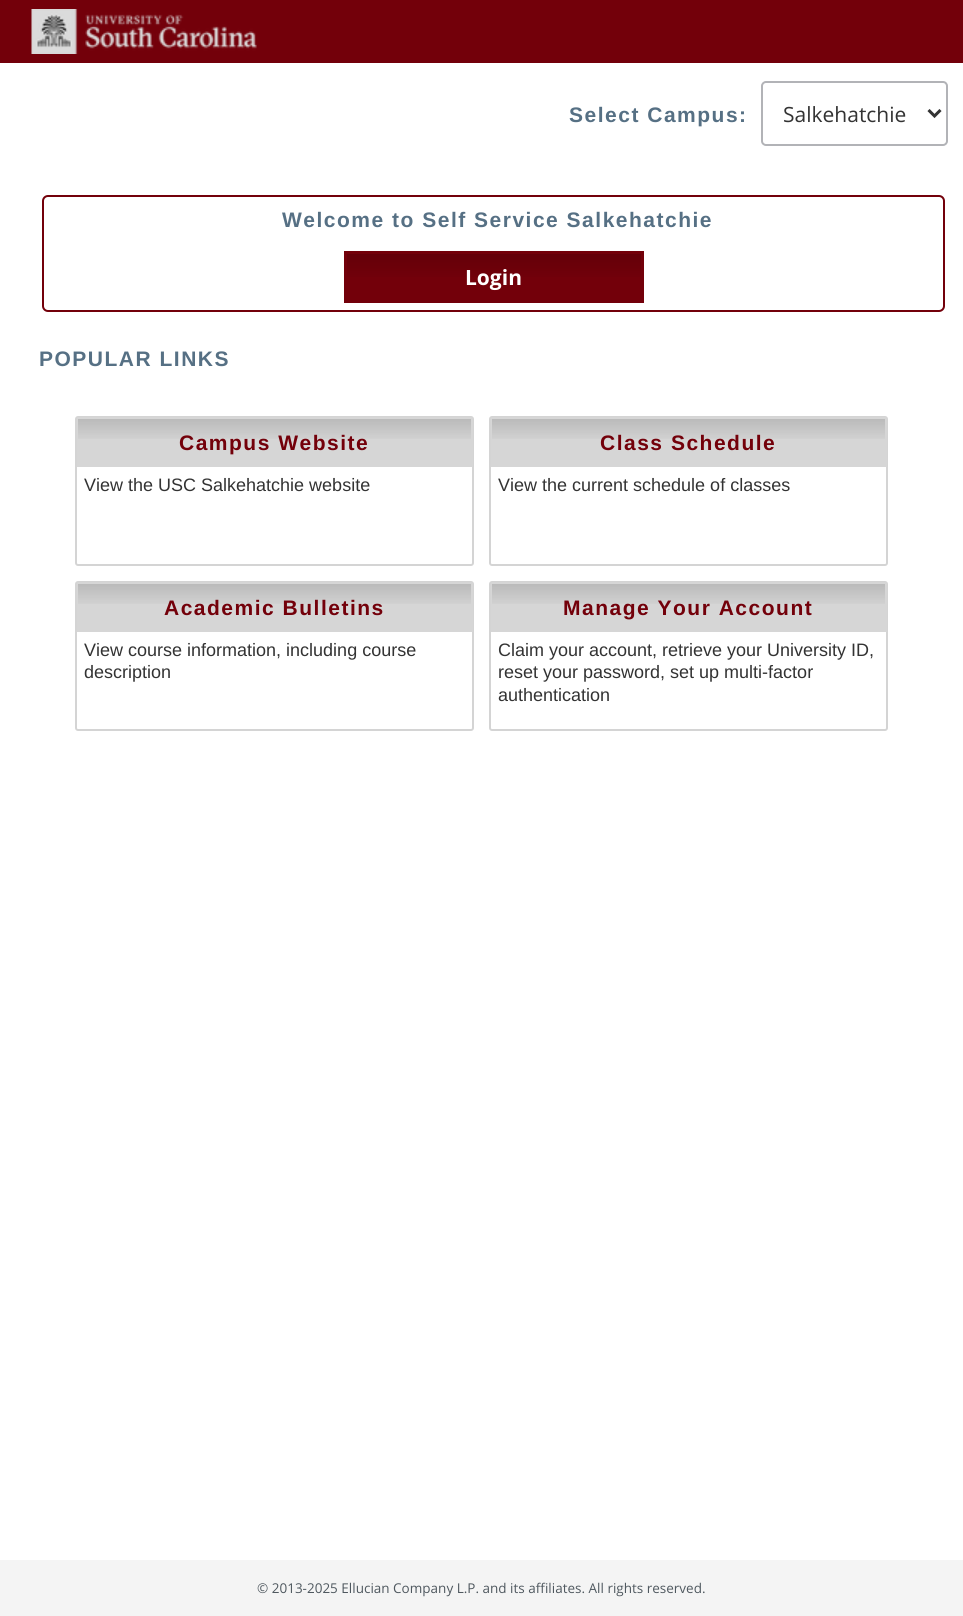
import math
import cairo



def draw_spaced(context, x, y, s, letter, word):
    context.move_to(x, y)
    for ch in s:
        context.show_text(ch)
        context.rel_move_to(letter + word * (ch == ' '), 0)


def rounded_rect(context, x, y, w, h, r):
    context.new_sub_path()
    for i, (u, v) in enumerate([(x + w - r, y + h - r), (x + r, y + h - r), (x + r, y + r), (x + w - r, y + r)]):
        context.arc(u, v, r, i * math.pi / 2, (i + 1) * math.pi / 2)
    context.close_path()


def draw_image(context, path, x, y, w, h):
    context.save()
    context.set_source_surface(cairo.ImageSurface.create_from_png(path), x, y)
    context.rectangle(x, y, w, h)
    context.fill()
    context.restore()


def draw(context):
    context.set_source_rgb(1, 1, 1)
    context.paint()
    context.set_source_rgb(115 / 255, 0, 10 / 255)
    context.rectangle(0, 0, 963, 63)
    context.fill()
    draw_image(context, "images/1.png", 31, 9, 226, 45)
    rounded_rect(context, 762, 82, 185, 63, 4)
    context.set_source_rgb(178 / 255, 179 / 255, 183 / 255)
    context.stroke()
    context.new_path()
    context.move_to(928.5, 110)
    context.line_to(934.5, 116)
    context.line_to(940.5, 110)
    context.set_source_rgb(51 / 255, 51 / 255, 51 / 255)
    context.set_line_width(3)
    context.stroke()
    rounded_rect(context, 43, 196, 901, 115, 5)
    context.set_source_rgb(115 / 255, 0, 10 / 255)
    context.set_line_width(2)
    context.stroke()
    context.rectangle(344, 251, 300, 52)
    context.fill()
    gradient = cairo.LinearGradient(494, 254, 494, 281)
    gradient.add_color_stop_rgba(0, 0, 0, 0, 0.13)
    gradient.add_color_stop_rgba(1, 0, 0, 0, 0)
    context.set_source(gradient)
    context.rectangle(347, 254, 294, 23)
    context.fill()
    rounded_rect(context, 76, 417, 397, 148, 2)
    context.set_source_rgb(212 / 255, 212 / 255, 212 / 255)
    context.stroke()
    context.set_source_rgb(214 / 255, 214 / 255, 214 / 255)
    context.new_path()
    context.move_to(78.5, 417)
    context.line_to(471.5, 417)
    context.curve_to(472.5, 417, 473, 417.5, 473, 418.5)
    context.line_to(473, 467)
    context.line_to(77, 467)
    context.line_to(77, 418.5)
    context.curve_to(77, 417.5, 77.5, 417, 78.5, 417)
    context.close_path()
    context.fill()
    gradient = cairo.LinearGradient(275, 419, 275, 443)
    gradient.add_color_stop_rgba(0, 0, 0, 0, 0.13)
    gradient.add_color_stop_rgba(1, 0, 0, 0, 0)
    context.set_source(gradient)
    context.rectangle(78, 419, 393, 20)
    context.fill()
    rounded_rect(context, 490, 417, 397, 148, 2)
    context.set_source_rgb(212 / 255, 212 / 255, 212 / 255)
    context.stroke()
    context.set_source_rgb(214 / 255, 214 / 255, 214 / 255)
    context.new_path()
    context.move_to(492.5, 417)
    context.line_to(885.5, 417)
    context.curve_to(886.5, 417, 887, 417.5, 887, 418.5)
    context.line_to(887, 467)
    context.line_to(491, 467)
    context.line_to(491, 418.5)
    context.curve_to(491, 417.5, 491.5, 417, 492.5, 417)
    context.close_path()
    context.fill()
    gradient = cairo.LinearGradient(689, 419, 689, 443)
    gradient.add_color_stop_rgba(0, 0, 0, 0, 0.13)
    gradient.add_color_stop_rgba(1, 0, 0, 0, 0)
    context.set_source(gradient)
    context.rectangle(492, 419, 393, 20)
    context.fill()
    rounded_rect(context, 76, 582, 397, 148, 2)
    context.set_source_rgb(212 / 255, 212 / 255, 212 / 255)
    context.stroke()
    context.set_source_rgb(214 / 255, 214 / 255, 214 / 255)
    context.new_path()
    context.move_to(78.5, 582)
    context.line_to(471.5, 582)
    context.curve_to(472.5, 582, 473, 582.5, 473, 583.5)
    context.line_to(473, 632)
    context.line_to(77, 632)
    context.line_to(77, 583.5)
    context.curve_to(77, 582.5, 77.5, 582, 78.5, 582)
    context.close_path()
    context.fill()
    gradient = cairo.LinearGradient(275, 584, 275, 608)
    gradient.add_color_stop_rgba(0, 0, 0, 0, 0.13)
    gradient.add_color_stop_rgba(1, 0, 0, 0, 0)
    context.set_source(gradient)
    context.rectangle(78, 584, 393, 20)
    context.fill()
    rounded_rect(context, 490, 582, 397, 148, 2)
    context.set_source_rgb(212 / 255, 212 / 255, 212 / 255)
    context.stroke()
    context.set_source_rgb(214 / 255, 214 / 255, 214 / 255)
    context.new_path()
    context.move_to(492.5, 582)
    context.line_to(885.5, 582)
    context.curve_to(886.5, 582, 887, 582.5, 887, 583.5)
    context.line_to(887, 632)
    context.line_to(491, 632)
    context.line_to(491, 583.5)
    context.curve_to(491, 582.5, 491.5, 582, 492.5, 582)
    context.close_path()
    context.fill()
    gradient = cairo.LinearGradient(689, 584, 689, 608)
    gradient.add_color_stop_rgba(0, 0, 0, 0, 0.13)
    gradient.add_color_stop_rgba(1, 0, 0, 0, 0)
    context.set_source(gradient)
    context.rectangle(492, 584, 393, 20)
    context.fill()
    context.set_source_rgb(244 / 255, 244 / 255, 244 / 255)
    context.rectangle(0, 1560, 963, 56)
    context.fill()
    context.select_font_face("Liberation Sans", cairo.FontSlant.NORMAL, cairo.FontWeight.BOLD)
    context.set_font_size(21)
    context.set_source_rgb(86 / 255, 112 / 255, 132 / 255)
    draw_spaced(context, 569, 122, "Select Campus:", 1.5, 0)
    context.select_font_face("Open Sans")
    context.set_source_rgb(51 / 255, 51 / 255, 51 / 255)
    context.move_to(783, 122)
    context.show_text("Salkehatchie")
    context.select_font_face("Liberation Sans", cairo.FontSlant.NORMAL, cairo.FontWeight.BOLD)
    context.set_source_rgb(86 / 255, 112 / 255, 132 / 255)
    draw_spaced(context, 282, 227, "Welcome to Self Service Salkehatchie", 1.5, 0)
    context.select_font_face("Open Sans", cairo.FontSlant.NORMAL, cairo.FontWeight.BOLD)
    context.set_source_rgb(1, 1, 1)
    context.move_to(465, 285)
    context.show_text("Login")
    context.select_font_face("Liberation Sans", cairo.FontSlant.NORMAL, cairo.FontWeight.BOLD)
    context.set_source_rgb(86 / 255, 112 / 255, 132 / 255)
    draw_spaced(context, 39, 366, "POPULAR LINKS", 1.5, 0)
    context.set_source_rgb(115 / 255, 0, 10 / 255)
    draw_spaced(context, 179, 450, "Campus Website", 1.5, 0)
    context.select_font_face("Liberation Sans")
    context.set_font_size(18)
    context.set_source_rgb(51 / 255, 51 / 255, 51 / 255)
    context.move_to(84, 491)
    context.show_text("View the USC Salkehatchie website")
    context.select_font_face("Liberation Sans", cairo.FontSlant.NORMAL, cairo.FontWeight.BOLD)
    context.set_font_size(21)
    context.set_source_rgb(115 / 255, 0, 10 / 255)
    draw_spaced(context, 600, 450, "Class Schedule", 1.5, 0)
    context.select_font_face("Liberation Sans")
    context.set_font_size(18)
    context.set_source_rgb(51 / 255, 51 / 255, 51 / 255)
    context.move_to(498, 491)
    context.show_text("View the current schedule of classes")
    context.select_font_face("Liberation Sans", cairo.FontSlant.NORMAL, cairo.FontWeight.BOLD)
    context.set_font_size(21)
    context.set_source_rgb(115 / 255, 0, 10 / 255)
    draw_spaced(context, 164, 615, "Academic Bulletins", 1.5, 0)
    context.select_font_face("Liberation Sans")
    context.set_font_size(18)
    context.set_source_rgb(51 / 255, 51 / 255, 51 / 255)
    context.move_to(84, 656)
    context.show_text("View course information, including course")
    context.move_to(84, 678)
    context.show_text("description")
    context.select_font_face("Liberation Sans", cairo.FontSlant.NORMAL, cairo.FontWeight.BOLD)
    context.set_font_size(21)
    context.set_source_rgb(115 / 255, 0, 10 / 255)
    draw_spaced(context, 563, 615, "Manage Your Account", 1.5, 0)
    context.select_font_face("Liberation Sans")
    context.set_font_size(18)
    context.set_source_rgb(51 / 255, 51 / 255, 51 / 255)
    context.move_to(498, 656)
    context.show_text("Claim your account, retrieve your University ID,")
    context.move_to(498, 678)
    context.show_text("reset your password, set up multi-factor")
    context.move_to(498, 701)
    context.show_text("authentication")
    context.select_font_face("Open Sans")
    context.set_font_size(13.5)
    context.set_source_rgb(79 / 255, 88 / 255, 95 / 255)
    context.move_to(257, 1593)
    context.show_text("© 2013-2025 Ellucian Company L.P. and its affiliates. All rights reserved.")


surface = cairo.ImageSurface(cairo.Format.RGB24, 963, 1616)
context = cairo.Context(surface)
options = cairo.FontOptions()
options.set_hint_metrics(cairo.HintMetrics.OFF)
options.set_hint_style(cairo.HintStyle.NONE)
context.set_font_options(options)
context.set_miter_limit(4)
draw(context)
surface.write_to_png("out.png")
